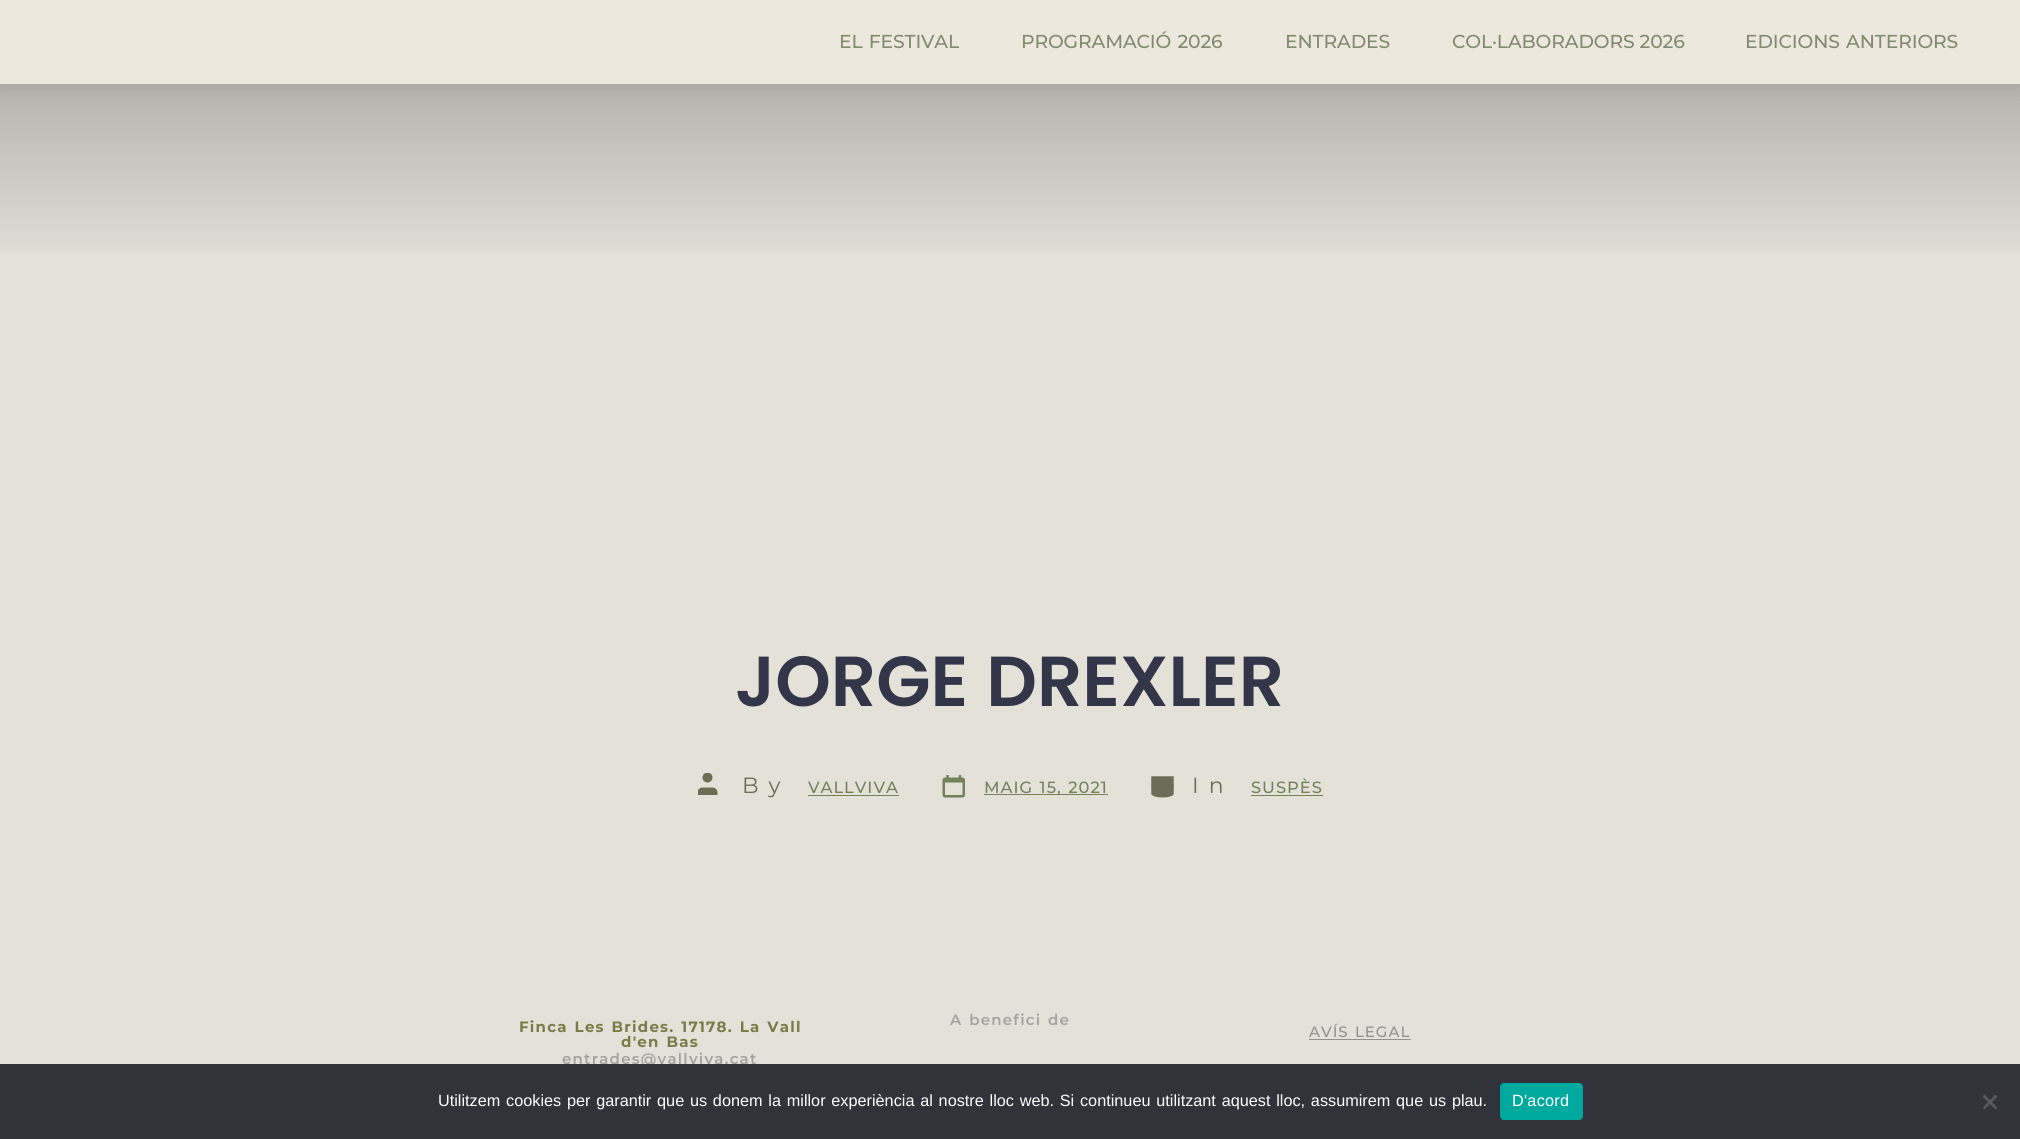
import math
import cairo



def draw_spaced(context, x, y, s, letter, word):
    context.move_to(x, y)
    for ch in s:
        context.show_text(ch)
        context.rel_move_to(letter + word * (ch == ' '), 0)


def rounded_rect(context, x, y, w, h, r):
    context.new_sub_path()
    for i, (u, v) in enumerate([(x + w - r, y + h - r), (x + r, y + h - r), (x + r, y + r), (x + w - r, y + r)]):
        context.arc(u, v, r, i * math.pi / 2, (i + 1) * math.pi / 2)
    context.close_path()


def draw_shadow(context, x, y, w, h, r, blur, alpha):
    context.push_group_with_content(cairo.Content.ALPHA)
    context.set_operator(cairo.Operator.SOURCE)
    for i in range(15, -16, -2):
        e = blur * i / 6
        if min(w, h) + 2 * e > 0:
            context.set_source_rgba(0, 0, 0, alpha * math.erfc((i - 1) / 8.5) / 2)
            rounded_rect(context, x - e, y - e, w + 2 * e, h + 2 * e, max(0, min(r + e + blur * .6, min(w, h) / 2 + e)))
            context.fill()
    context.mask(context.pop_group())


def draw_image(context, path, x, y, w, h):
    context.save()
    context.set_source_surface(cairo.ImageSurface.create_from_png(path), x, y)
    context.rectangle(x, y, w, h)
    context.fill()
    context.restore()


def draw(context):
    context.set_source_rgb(228 / 255, 225 / 255, 217 / 255)
    context.paint()
    context.set_source_rgb(0, 0, 0)
    draw_shadow(context, 0, 0, 2020, 84, 0, 12, 0.12)
    context.set_source_rgb(237 / 255, 232 / 255, 222 / 255)
    context.rectangle(0, 0, 2020, 84)
    context.fill()
    gradient = cairo.LinearGradient(1010, 84, 1010, 555)
    gradient.add_color_stop_rgba(0, 0, 0, 0, 0.2)
    gradient.add_color_stop_rgba(0.4, 0, 0, 0, 0)
    context.set_source(gradient)
    context.rectangle(0, 84, 2020, 168)
    context.fill()
    draw_image(context, "images/1.png", 698, 773, 20, 22)
    context.set_source_rgb(114 / 255, 130 / 255, 89 / 255)
    context.rectangle(808, 795, 91, 1)
    context.fill()
    draw_image(context, "images/2.png", 942, 775, 23, 23)
    context.rectangle(984, 794, 124, 1)
    context.fill()
    draw_image(context, "images/3.png", 1151, 776, 23, 22)
    context.rectangle(1251, 795, 72, 1)
    context.fill()
    context.set_source_rgb(144 / 255, 147 / 255, 138 / 255)
    context.rectangle(1309, 1039, 102, 1)
    context.fill()
    context.select_font_face("Montserrat Medium")
    context.set_font_size(18.75)
    context.set_source_rgb(129 / 255, 139 / 255, 111 / 255)
    draw_spaced(context, 839, 48, "EL FESTIVAL", -0.1, 1.25)
    draw_spaced(context, 1021, 48, "PROGRAMACIÓ 2026", -0.1, 1.25)
    draw_spaced(context, 1285, 48, "ENTRADES", -0.1, 0)
    draw_spaced(context, 1452, 48, "COL·LABORADORS 2026", -0.1, 0)
    draw_spaced(context, 1745, 48, "EDICIONS ANTERIORS", -0.1, 1.25)
    context.select_font_face("Poppins SemiBold")
    context.set_font_size(70.75)
    context.set_source_rgb(50 / 255, 54 / 255, 72 / 255)
    draw_spaced(context, 735, 706, "JORGE DREXLER", 0, 1.25)
    context.select_font_face("Montserrat")
    context.set_font_size(22)
    context.set_source_rgb(109 / 255, 109 / 255, 85 / 255)
    draw_spaced(context, 742, 793, "By", 10, 0)
    context.select_font_face("Montserrat Medium")
    context.set_font_size(16.25)
    context.set_source_rgb(114 / 255, 130 / 255, 89 / 255)
    draw_spaced(context, 808, 793, "VALLVIVA", 1, 0)
    draw_spaced(context, 984, 793, "MAIG 15, 2021", 1, 1.25)
    context.select_font_face("Montserrat")
    context.set_font_size(22)
    context.set_source_rgb(109 / 255, 109 / 255, 85 / 255)
    draw_spaced(context, 1192, 793, "In", 10, 0)
    context.select_font_face("Montserrat Medium")
    context.set_font_size(16.25)
    context.set_source_rgb(114 / 255, 130 / 255, 89 / 255)
    draw_spaced(context, 1251, 793, "SUSPÈS", 1, 0)
    context.select_font_face("Montserrat", cairo.FontSlant.NORMAL, cairo.FontWeight.BOLD)
    context.set_font_size(15)
    context.set_source_rgb(123 / 255, 123 / 255, 74 / 255)
    draw_spaced(context, 519, 1032, "Finca Les Brides. 17178. La Vall", 1.25, 1.25)
    draw_spaced(context, 621, 1047, "d'en Bas", 1.25, 1.25)
    context.select_font_face("Montserrat SemiBold")
    context.set_source_rgb(164 / 255, 162 / 255, 156 / 255)
    draw_spaced(context, 562, 1064, "entrades@vallviva.cat", 1.25, 0)
    draw_spaced(context, 950, 1025, "A benefici de", 1.25, 1.25)
    context.select_font_face("Montserrat Medium")
    context.set_source_rgb(144 / 255, 147 / 255, 138 / 255)
    draw_spaced(context, 1309, 1037, "AVÍS LEGAL", 1, 1.25)
    context.set_source_rgb(50 / 255, 50 / 255, 58 / 255)
    context.rectangle(0, 1064, 2020, 75)
    context.fill()
    context.select_font_face("Liberation Sans")
    context.set_font_size(16.25)
    context.set_source_rgb(1, 1, 1)
    draw_spaced(context, 438, 1106, "Utilitzem cookies per garantir que us donem la millor experiència al nostre lloc web. Si continueu utilitzant aquest lloc, assumirem que us plau.", 0, 1.25)
    context.set_source_rgb(0, 169 / 255, 157 / 255)
    rounded_rect(context, 1500, 1083, 83, 37, 4)
    context.fill()
    context.set_source_rgb(1, 1, 1)
    draw_spaced(context, 1512, 1106, "D'acord", 0.25, 0)
    context.set_source_rgb(89 / 255, 89 / 255, 93 / 255)
    context.new_path()
    context.move_to(1995.5, 1094.5)
    context.line_to(1997.5, 1096.5)
    context.line_to(1984.5, 1109.5)
    context.line_to(1982.5, 1108)
    context.close_path()
    context.fill()
    context.new_path()
    context.move_to(1982.5, 1096.5)
    context.line_to(1984.5, 1094.5)
    context.line_to(1997.5, 1108)
    context.line_to(1995.5, 1109.5)
    context.close_path()
    context.fill()


surface = cairo.ImageSurface(cairo.Format.RGB24, 2020, 1139)
context = cairo.Context(surface)
options = cairo.FontOptions()
options.set_hint_metrics(cairo.HintMetrics.OFF)
options.set_hint_style(cairo.HintStyle.NONE)
context.set_font_options(options)
context.set_miter_limit(4)
draw(context)
surface.write_to_png("out.png")
